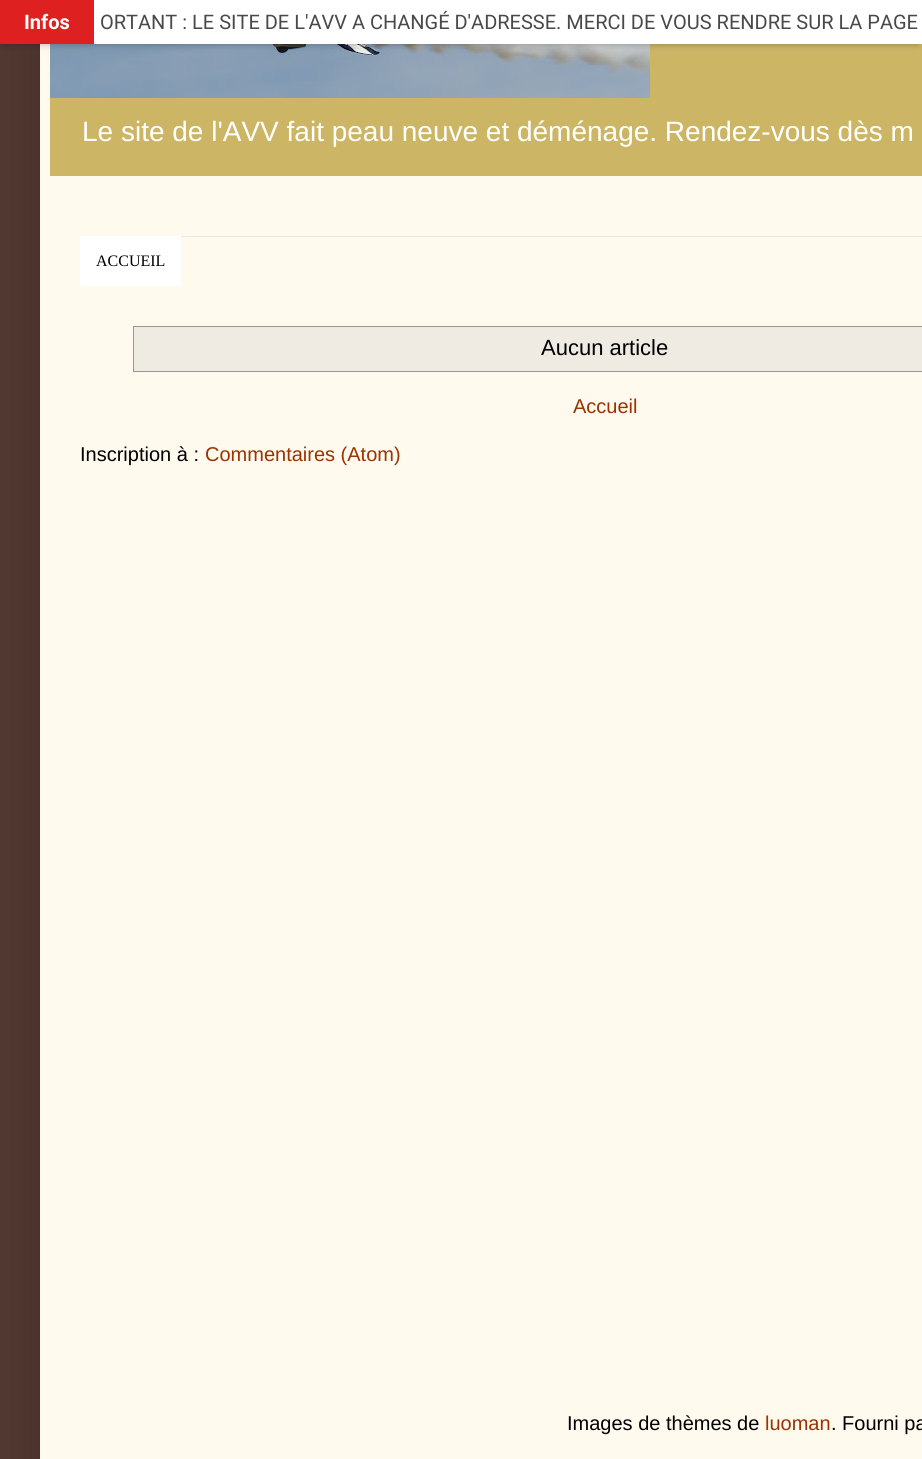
import math
import cairo



def rounded_rect(context, x, y, w, h, r):
    context.new_sub_path()
    for i, (u, v) in enumerate([(x + w - r, y + h - r), (x + r, y + h - r), (x + r, y + r), (x + w - r, y + r)]):
        context.arc(u, v, r, i * math.pi / 2, (i + 1) * math.pi / 2)
    context.close_path()


def draw_shadow(context, x, y, w, h, r, blur, alpha):
    context.push_group_with_content(cairo.Content.ALPHA)
    context.set_operator(cairo.Operator.SOURCE)
    for i in range(15, -16, -2):
        e = blur * i / 6
        if min(w, h) + 2 * e > 0:
            context.set_source_rgba(0, 0, 0, alpha * math.erfc((i - 1) / 8.5) / 2)
            rounded_rect(context, x - e, y - e, w + 2 * e, h + 2 * e, max(0, min(r + e + blur * .6, min(w, h) / 2 + e)))
            context.fill()
    context.mask(context.pop_group())


def draw_image(context, path, x, y, w, h):
    context.save()
    context.set_source_surface(cairo.ImageSurface.create_from_png(path), x, y)
    context.rectangle(x, y, w, h)
    context.fill()
    context.restore()


def draw(context):
    context.set_source_rgb(81 / 255, 56 / 255, 49 / 255)
    context.paint()
    context.set_source_rgb(0, 0, 0)
    draw_shadow(context, 40, -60, 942, 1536, 0, 20, 0.15)
    context.set_source_rgb(1, 249 / 255, 238 / 255)
    context.rectangle(40, 44, 882, 1415)
    context.fill()
    context.set_source_rgb(204 / 255, 182 / 255, 102 / 255)
    context.rectangle(50, 44, 872, 132)
    context.fill()
    draw_image(context, "images/1.png", 50, 44, 600, 54)
    context.set_source_rgb(0, 0, 0)
    draw_shadow(context, 4, 8, 914, 36, 0, 4, 0.3)
    context.set_source_rgb(1, 1, 1)
    context.rectangle(94, 0, 828, 44)
    context.fill()
    context.set_source_rgb(223 / 255, 32 / 255, 32 / 255)
    context.rectangle(0, 0, 94, 44)
    context.fill()
    context.set_source_rgb(238 / 255, 229 / 255, 221 / 255)
    context.rectangle(181, 236, 741, 1)
    context.fill()
    context.set_source_rgb(1, 1, 1)
    context.rectangle(80, 236, 101, 50)
    context.fill()
    context.rectangle(133.5, 326.5, 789, 45)
    context.set_source_rgb(153 / 255, 149 / 255, 143 / 255)
    context.set_line_width(1)
    context.stroke()
    context.set_source_rgb(239 / 255, 235 / 255, 227 / 255)
    context.rectangle(134, 327, 788, 44)
    context.fill()
    context.select_font_face("Roboto", cairo.FontSlant.NORMAL, cairo.FontWeight.BOLD)
    context.set_font_size(20)
    context.set_source_rgb(1, 1, 1)
    context.move_to(24, 29)
    context.show_text("Infos")
    context.select_font_face("Roboto")
    context.set_source_rgb(73 / 255, 73 / 255, 73 / 255)
    context.move_to(100, 29)
    context.show_text("ORTANT : LE SITE DE L'AVV A CHANGÉ D'ADRESSE. MERCI DE VOUS RENDRE SUR LA PAGE")
    context.select_font_face("Liberation Sans")
    context.set_font_size(28)
    context.set_source_rgb(1, 1, 1)
    context.move_to(82, 141)
    context.show_text("Le site de l'AVV fait peau neuve et déménage. Rendez-vous dès m")
    context.select_font_face("Liberation Serif")
    context.set_font_size(16)
    context.set_source_rgb(0, 0, 0)
    context.move_to(96, 266)
    context.show_text("ACCUEIL")
    context.select_font_face("Liberation Sans")
    context.set_font_size(22)
    context.move_to(541, 355)
    context.show_text("Aucun article")
    context.set_font_size(20)
    context.set_source_rgb(153 / 255, 51 / 255, 0)
    context.move_to(573, 413)
    context.show_text("Accueil")
    context.set_source_rgb(0, 0, 0)
    context.move_to(80, 461)
    context.show_text("Inscription à :")
    context.set_source_rgb(153 / 255, 51 / 255, 0)
    context.move_to(205, 461)
    context.show_text("Commentaires (Atom)")
    context.set_source_rgb(0, 0, 0)
    context.move_to(567, 1430)
    context.show_text("Images de thèmes de")
    context.set_source_rgb(153 / 255, 51 / 255, 0)
    context.move_to(765, 1430)
    context.show_text("luoman")
    context.set_source_rgb(0, 0, 0)
    context.move_to(831, 1430)
    context.show_text(". Fourni pa")


surface = cairo.ImageSurface(cairo.Format.RGB24, 922, 1459)
context = cairo.Context(surface)
options = cairo.FontOptions()
options.set_hint_metrics(cairo.HintMetrics.OFF)
options.set_hint_style(cairo.HintStyle.NONE)
context.set_font_options(options)
context.set_miter_limit(4)
draw(context)
surface.write_to_png("out.png")
